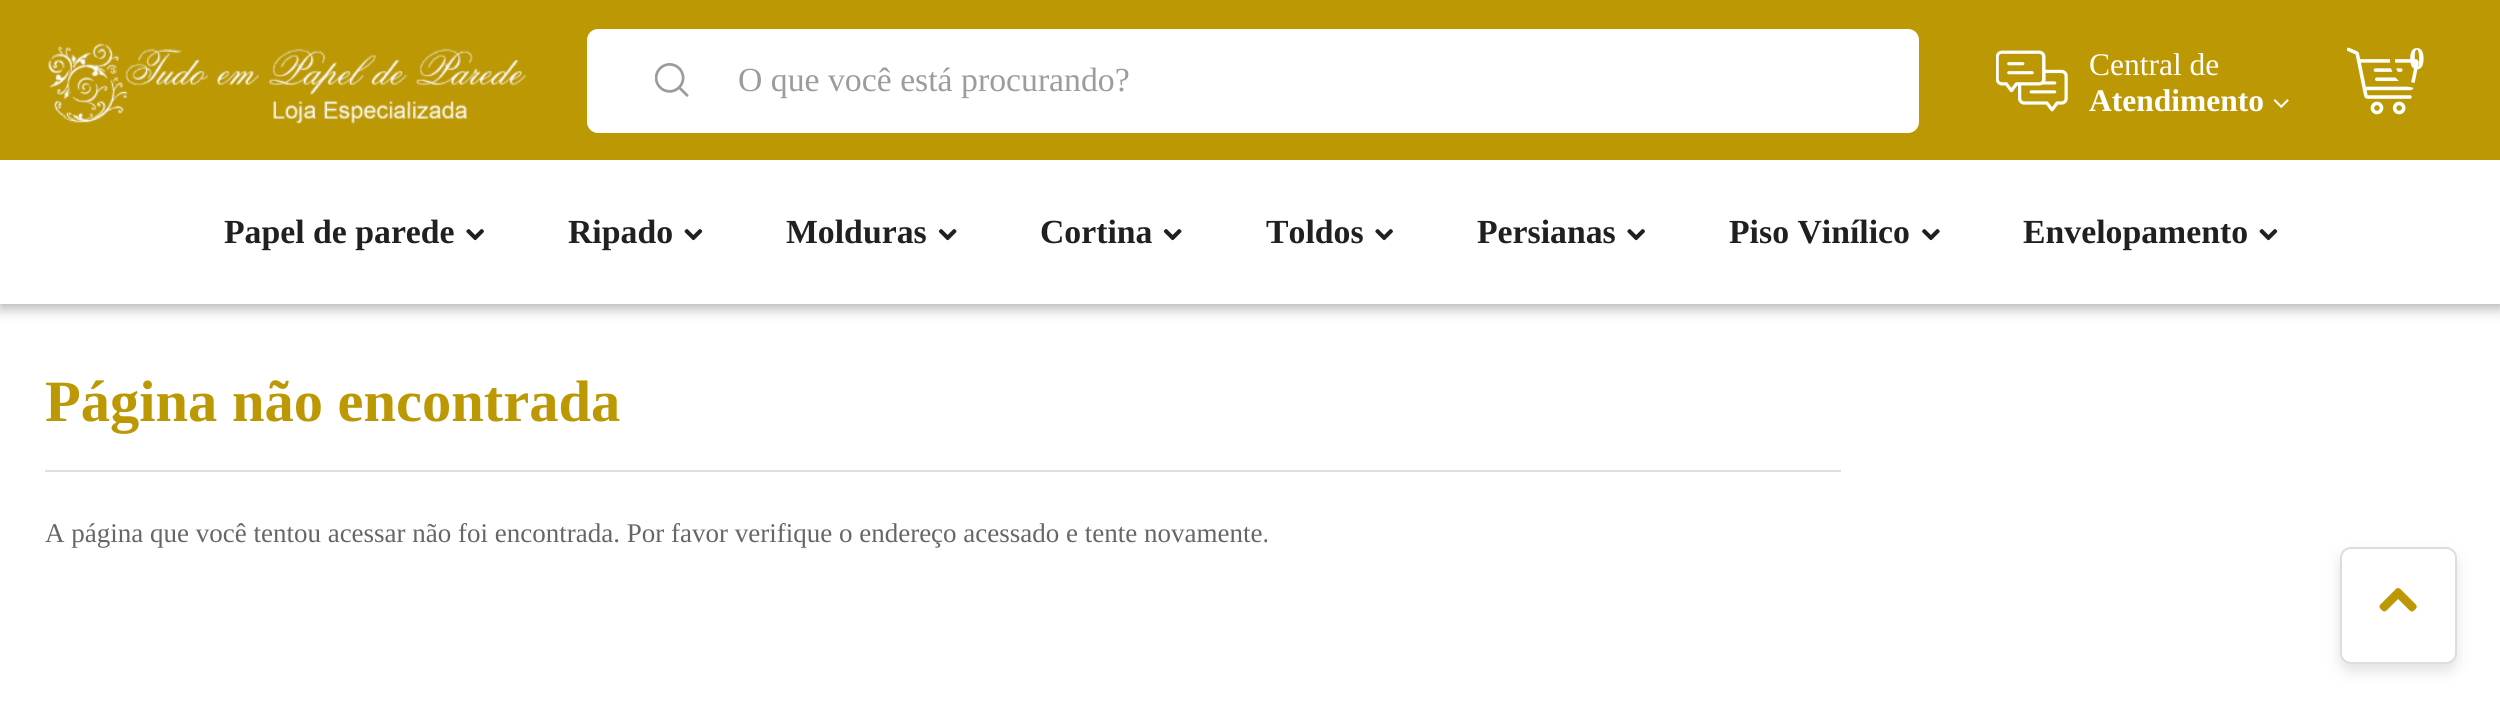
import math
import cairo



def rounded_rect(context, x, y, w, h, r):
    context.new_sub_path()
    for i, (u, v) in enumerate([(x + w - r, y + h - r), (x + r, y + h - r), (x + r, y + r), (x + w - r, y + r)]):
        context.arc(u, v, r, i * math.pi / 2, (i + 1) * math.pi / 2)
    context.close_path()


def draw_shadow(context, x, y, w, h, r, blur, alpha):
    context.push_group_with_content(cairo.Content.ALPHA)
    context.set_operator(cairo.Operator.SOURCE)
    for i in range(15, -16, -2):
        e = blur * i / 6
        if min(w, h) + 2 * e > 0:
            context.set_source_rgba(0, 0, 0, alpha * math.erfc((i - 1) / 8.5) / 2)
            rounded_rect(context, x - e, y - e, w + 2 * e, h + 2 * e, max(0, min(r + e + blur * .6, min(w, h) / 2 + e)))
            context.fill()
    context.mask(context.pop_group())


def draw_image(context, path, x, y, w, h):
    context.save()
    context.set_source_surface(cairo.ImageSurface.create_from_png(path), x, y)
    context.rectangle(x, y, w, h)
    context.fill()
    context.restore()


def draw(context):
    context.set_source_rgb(1, 1, 1)
    context.paint()
    context.set_source_rgb(43 / 255, 43 / 255, 43 / 255)
    draw_shadow(context, 0, 5, 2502, 303, 0, 7, 0.38)
    context.set_source_rgb(189 / 255, 152 / 255, 5 / 255)
    context.rectangle(0, 0, 2500, 160)
    context.fill()
    draw_image(context, "images/1.png", 48, 43, 479, 81)
    context.set_source_rgb(1, 1, 1)
    rounded_rect(context, 587, 29, 1332, 104, 11)
    context.fill()
    draw_image(context, "images/2.png", 655, 63, 34, 34)
    draw_image(context, "images/3.png", 1996, 50, 72, 62)
    draw_image(context, "images/4.png", 2273, 99, 16, 9)
    draw_image(context, "images/5.png", 2347, 47, 72, 68)
    context.arc(2417, 61, 24.5, 0, 2 * math.pi)
    context.set_source_rgb(189 / 255, 152 / 255, 5 / 255)
    context.set_line_width(5)
    context.stroke()
    context.set_source_rgb(1, 1, 1)
    context.rectangle(0, 160, 2500, 144)
    context.fill()
    draw_image(context, "images/6.png", 466, 229, 18, 12)
    draw_image(context, "images/7.png", 684, 229, 19, 12)
    draw_image(context, "images/8.png", 938, 229, 19, 12)
    draw_image(context, "images/8.png", 1163, 229, 19, 12)
    draw_image(context, "images/6.png", 1375, 229, 18, 12)
    draw_image(context, "images/6.png", 1627, 229, 18, 12)
    draw_image(context, "images/9.png", 1922, 229, 18, 12)
    draw_image(context, "images/7.png", 2259, 229, 19, 12)
    context.set_source_rgb(223 / 255, 223 / 255, 223 / 255)
    context.rectangle(45, 470, 1796, 2)
    context.fill()
    context.set_source_rgb(100 / 255, 100 / 255, 100 / 255)
    draw_shadow(context, 2340, 554, 117, 117, 11, 7, 0.19)
    context.set_source_rgb(1, 1, 1)
    rounded_rect(context, 2341, 548, 115, 115, 10)
    context.fill_preserve()
    context.set_source_rgb(221 / 255, 221 / 255, 221 / 255)
    context.set_line_width(2)
    context.stroke()
    draw_image(context, "images/10.png", 2379, 588, 38, 24)
    context.select_font_face("Liberation Serif")
    context.set_font_size(33.75)
    context.set_source_rgb(156 / 255, 156 / 255, 156 / 255)
    context.move_to(738, 91)
    context.show_text("O que você está procurando?")
    context.set_font_size(31.5)
    context.set_source_rgb(1, 1, 1)
    context.move_to(2089, 75)
    context.show_text("Central de")
    context.select_font_face("Liberation Serif", cairo.FontSlant.NORMAL, cairo.FontWeight.BOLD)
    context.move_to(2089, 111)
    context.show_text("Atendimento")
    context.move_to(2409, 69)
    context.show_text("0")
    context.set_font_size(33.75)
    context.set_source_rgb(32 / 255, 32 / 255, 32 / 255)
    context.move_to(224, 243)
    context.show_text("Papel de parede")
    context.move_to(568, 243)
    context.show_text("Ripado")
    context.move_to(786, 243)
    context.show_text("Molduras")
    context.move_to(1040, 243)
    context.show_text("Cortina")
    context.move_to(1266, 243)
    context.show_text("Toldos")
    context.move_to(1477, 243)
    context.show_text("Persianas")
    context.move_to(1729, 243)
    context.show_text("Piso Vinílico")
    context.move_to(2023, 243)
    context.show_text("Envelopamento")
    context.set_font_size(58.5)
    context.set_source_rgb(189 / 255, 152 / 255, 5 / 255)
    context.move_to(45, 421)
    context.show_text("Página não encontrada")
    context.select_font_face("Liberation Serif")
    context.set_font_size(27)
    context.set_source_rgb(102 / 255, 102 / 255, 102 / 255)
    context.move_to(45, 542)
    context.show_text("A página que você tentou acessar não foi encontrada. Por favor verifique o endereço acessado e tente novamente.")


surface = cairo.ImageSurface(cairo.Format.RGB24, 2500, 707)
context = cairo.Context(surface)
options = cairo.FontOptions()
options.set_hint_metrics(cairo.HintMetrics.OFF)
options.set_hint_style(cairo.HintStyle.NONE)
context.set_font_options(options)
context.set_miter_limit(4)
draw(context)
surface.write_to_png("out.png")
